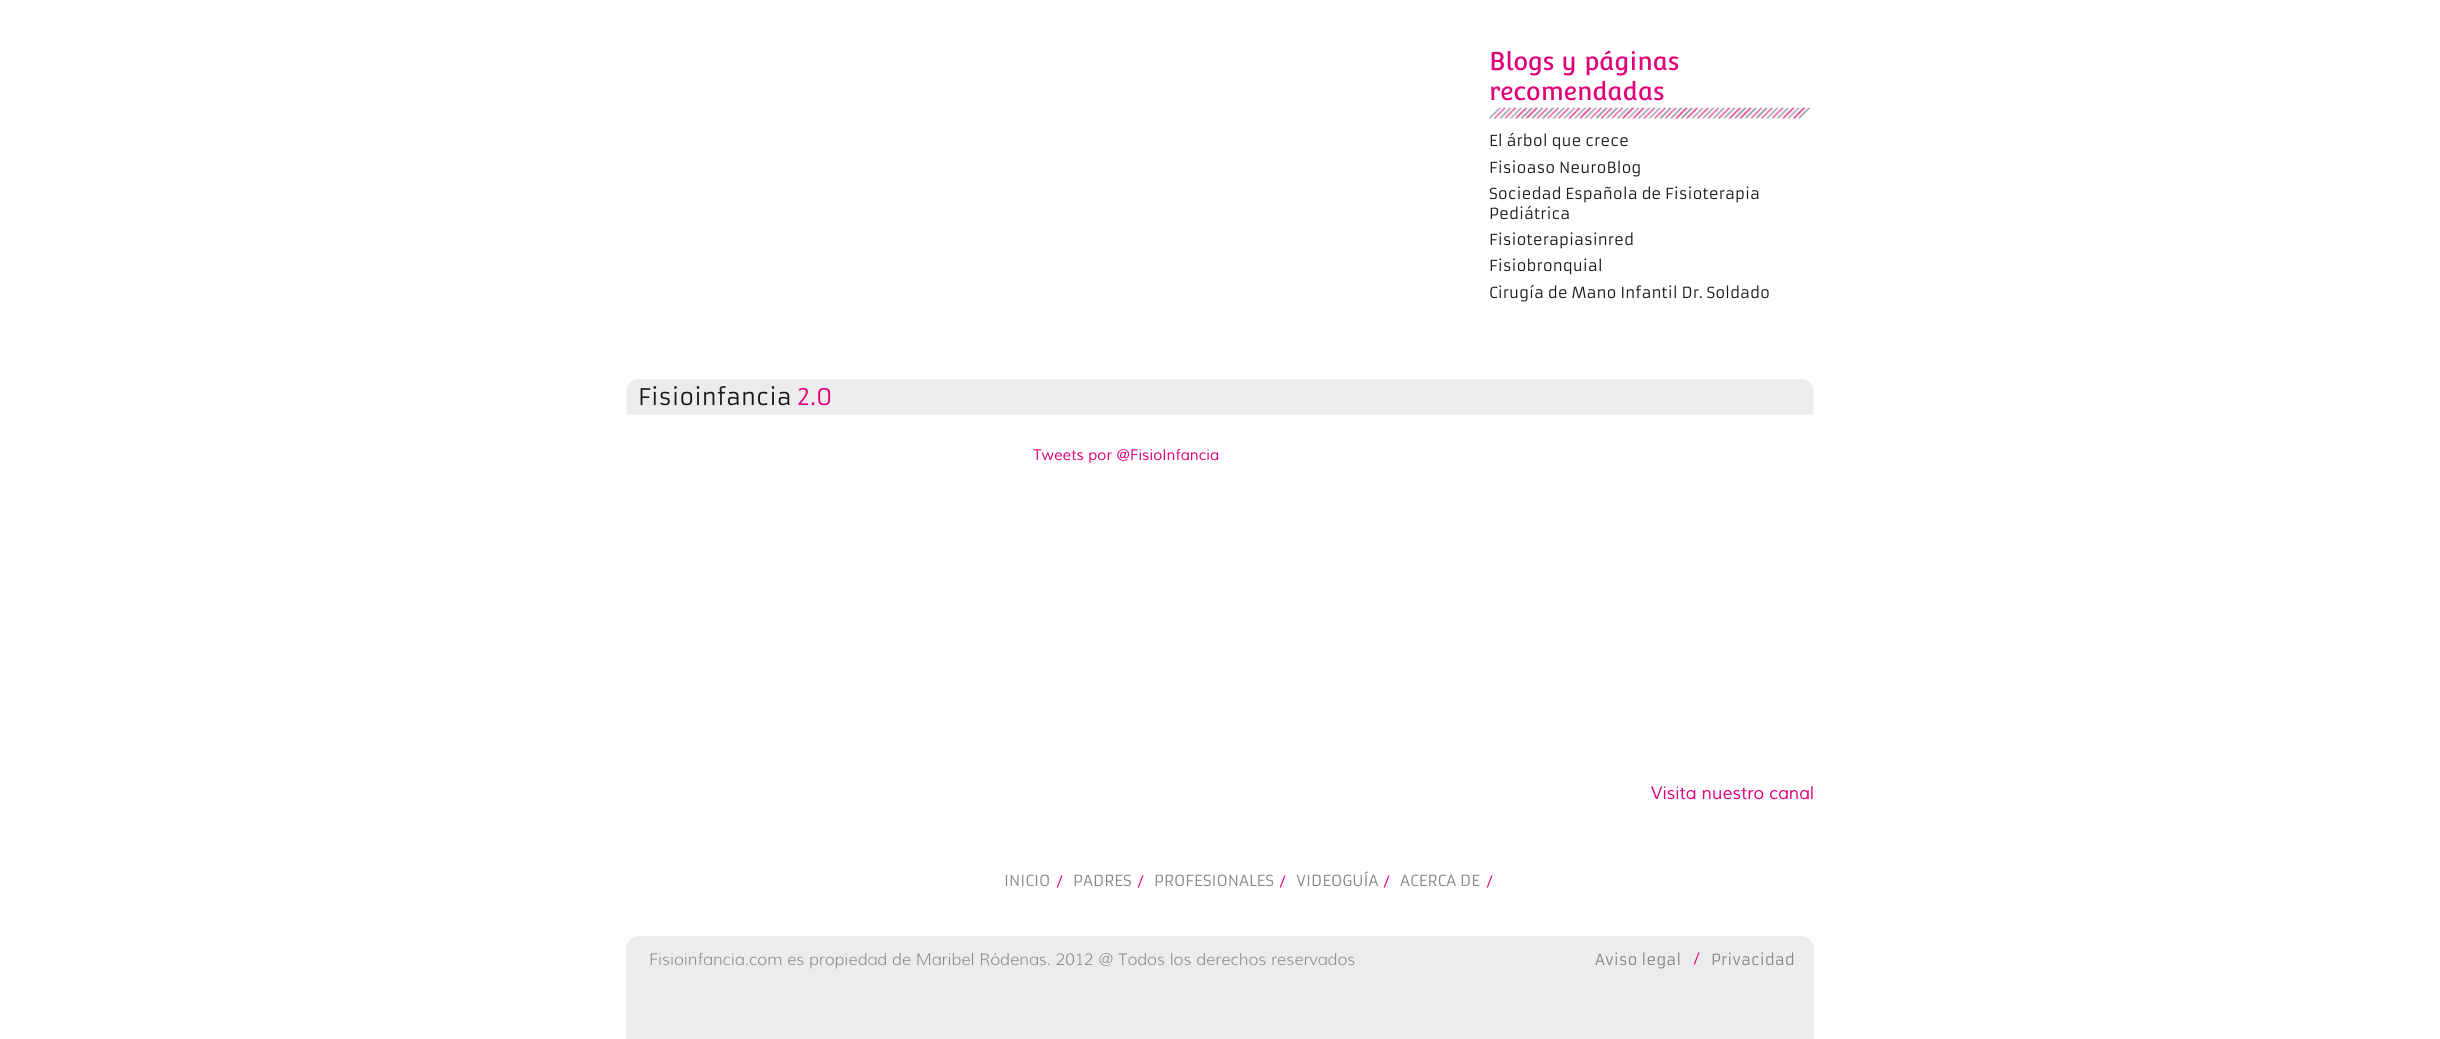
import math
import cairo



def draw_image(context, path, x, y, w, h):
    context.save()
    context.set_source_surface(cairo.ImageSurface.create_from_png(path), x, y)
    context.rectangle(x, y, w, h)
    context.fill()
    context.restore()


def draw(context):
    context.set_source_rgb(1, 1, 1)
    context.paint()
    draw_image(context, "images/1.png", 1488, 107, 322, 12)
    draw_image(context, "images/2.png", 626, 379, 1188, 36)
    context.set_source_rgb(236 / 255, 236 / 255, 237 / 255)
    context.new_path()
    context.move_to(639, 936)
    context.line_to(1801, 936)
    context.curve_to(1808, 936, 1814, 942, 1814, 949)
    context.line_to(1814, 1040)
    context.line_to(626, 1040)
    context.line_to(626, 949)
    context.curve_to(626, 942, 632, 936, 639, 936)
    context.close_path()
    context.fill()
    context.select_font_face("Convergence")
    context.set_font_size(25)
    context.set_source_rgb(225 / 255, 0, 122 / 255)
    context.move_to(1489, 70)
    context.show_text("Blogs y páginas")
    context.move_to(1489, 100)
    context.show_text("recomendadas")
    context.select_font_face("Armata")
    context.set_font_size(15)
    context.set_source_rgb(26 / 255, 23 / 255, 27 / 255)
    context.move_to(1489, 146)
    context.show_text("El árbol que crece")
    context.move_to(1489, 173)
    context.show_text("Fisioaso NeuroBlog")
    context.move_to(1489, 199)
    context.show_text("Sociedad Española de Fisioterapia")
    context.move_to(1489, 219)
    context.show_text("Pediátrica")
    context.move_to(1489, 245)
    context.show_text("Fisioterapiasinred")
    context.move_to(1489, 271)
    context.show_text("Fisiobronquial")
    context.move_to(1489, 298)
    context.show_text("Cirugía de Mano Infantil Dr. Soldado")
    context.set_font_size(22.5)
    context.move_to(638, 405)
    context.show_text("Fisioinfancia")
    context.set_source_rgb(225 / 255, 0, 122 / 255)
    context.move_to(797, 405)
    context.show_text("2.0")
    context.select_font_face("Muli", cairo.FontSlant.ITALIC)
    context.set_font_size(15)
    context.move_to(1033, 460)
    context.show_text("Tweets por @FisioInfancia")
    context.set_font_size(17.5)
    context.move_to(1651, 799)
    context.show_text("Visita nuestro canal")
    context.select_font_face("Armata")
    context.set_font_size(15)
    context.set_source_rgb(134 / 255, 135 / 255, 137 / 255)
    context.move_to(1004, 886)
    context.show_text("INICIO")
    context.select_font_face("Muli", cairo.FontSlant.ITALIC)
    context.set_source_rgb(225 / 255, 0, 122 / 255)
    context.move_to(1057, 886)
    context.show_text("/")
    context.select_font_face("Armata")
    context.set_source_rgb(134 / 255, 135 / 255, 137 / 255)
    context.move_to(1073, 886)
    context.show_text("PADRES")
    context.select_font_face("Muli", cairo.FontSlant.ITALIC)
    context.set_source_rgb(225 / 255, 0, 122 / 255)
    context.move_to(1138, 886)
    context.show_text("/")
    context.select_font_face("Armata")
    context.set_source_rgb(134 / 255, 135 / 255, 137 / 255)
    context.move_to(1154, 886)
    context.show_text("PROFESIONALES")
    context.select_font_face("Muli", cairo.FontSlant.ITALIC)
    context.set_source_rgb(225 / 255, 0, 122 / 255)
    context.move_to(1280, 886)
    context.show_text("/")
    context.select_font_face("Armata")
    context.set_source_rgb(134 / 255, 135 / 255, 137 / 255)
    context.move_to(1296, 886)
    context.show_text("VIDEOGUÍA")
    context.select_font_face("Muli", cairo.FontSlant.ITALIC)
    context.set_source_rgb(225 / 255, 0, 122 / 255)
    context.move_to(1384, 886)
    context.show_text("/")
    context.select_font_face("Armata")
    context.set_source_rgb(134 / 255, 135 / 255, 137 / 255)
    context.move_to(1400, 886)
    context.show_text("ACERCA DE")
    context.select_font_face("Muli", cairo.FontSlant.ITALIC)
    context.set_source_rgb(225 / 255, 0, 122 / 255)
    context.move_to(1487, 886)
    context.show_text("/")
    context.select_font_face("Muli Light")
    context.set_font_size(16.25)
    context.set_source_rgb(134 / 255, 135 / 255, 137 / 255)
    context.move_to(649, 965)
    context.show_text("Fisioinfancia.com es propiedad de Maribel Ródenas. 2012 @ Todos los derechos reservados")
    context.select_font_face("Armata")
    context.set_font_size(15)
    context.move_to(1595, 965)
    context.show_text("Aviso legal")
    context.select_font_face("Muli", cairo.FontSlant.ITALIC)
    context.set_source_rgb(225 / 255, 0, 122 / 255)
    context.move_to(1694, 963)
    context.show_text("/")
    context.select_font_face("Armata")
    context.set_source_rgb(134 / 255, 135 / 255, 137 / 255)
    context.move_to(1711, 965)
    context.show_text("Privacidad")


surface = cairo.ImageSurface(cairo.Format.RGB24, 2440, 1039)
context = cairo.Context(surface)
options = cairo.FontOptions()
options.set_hint_metrics(cairo.HintMetrics.OFF)
options.set_hint_style(cairo.HintStyle.NONE)
context.set_font_options(options)
context.set_miter_limit(4)
draw(context)
surface.write_to_png("out.png")
